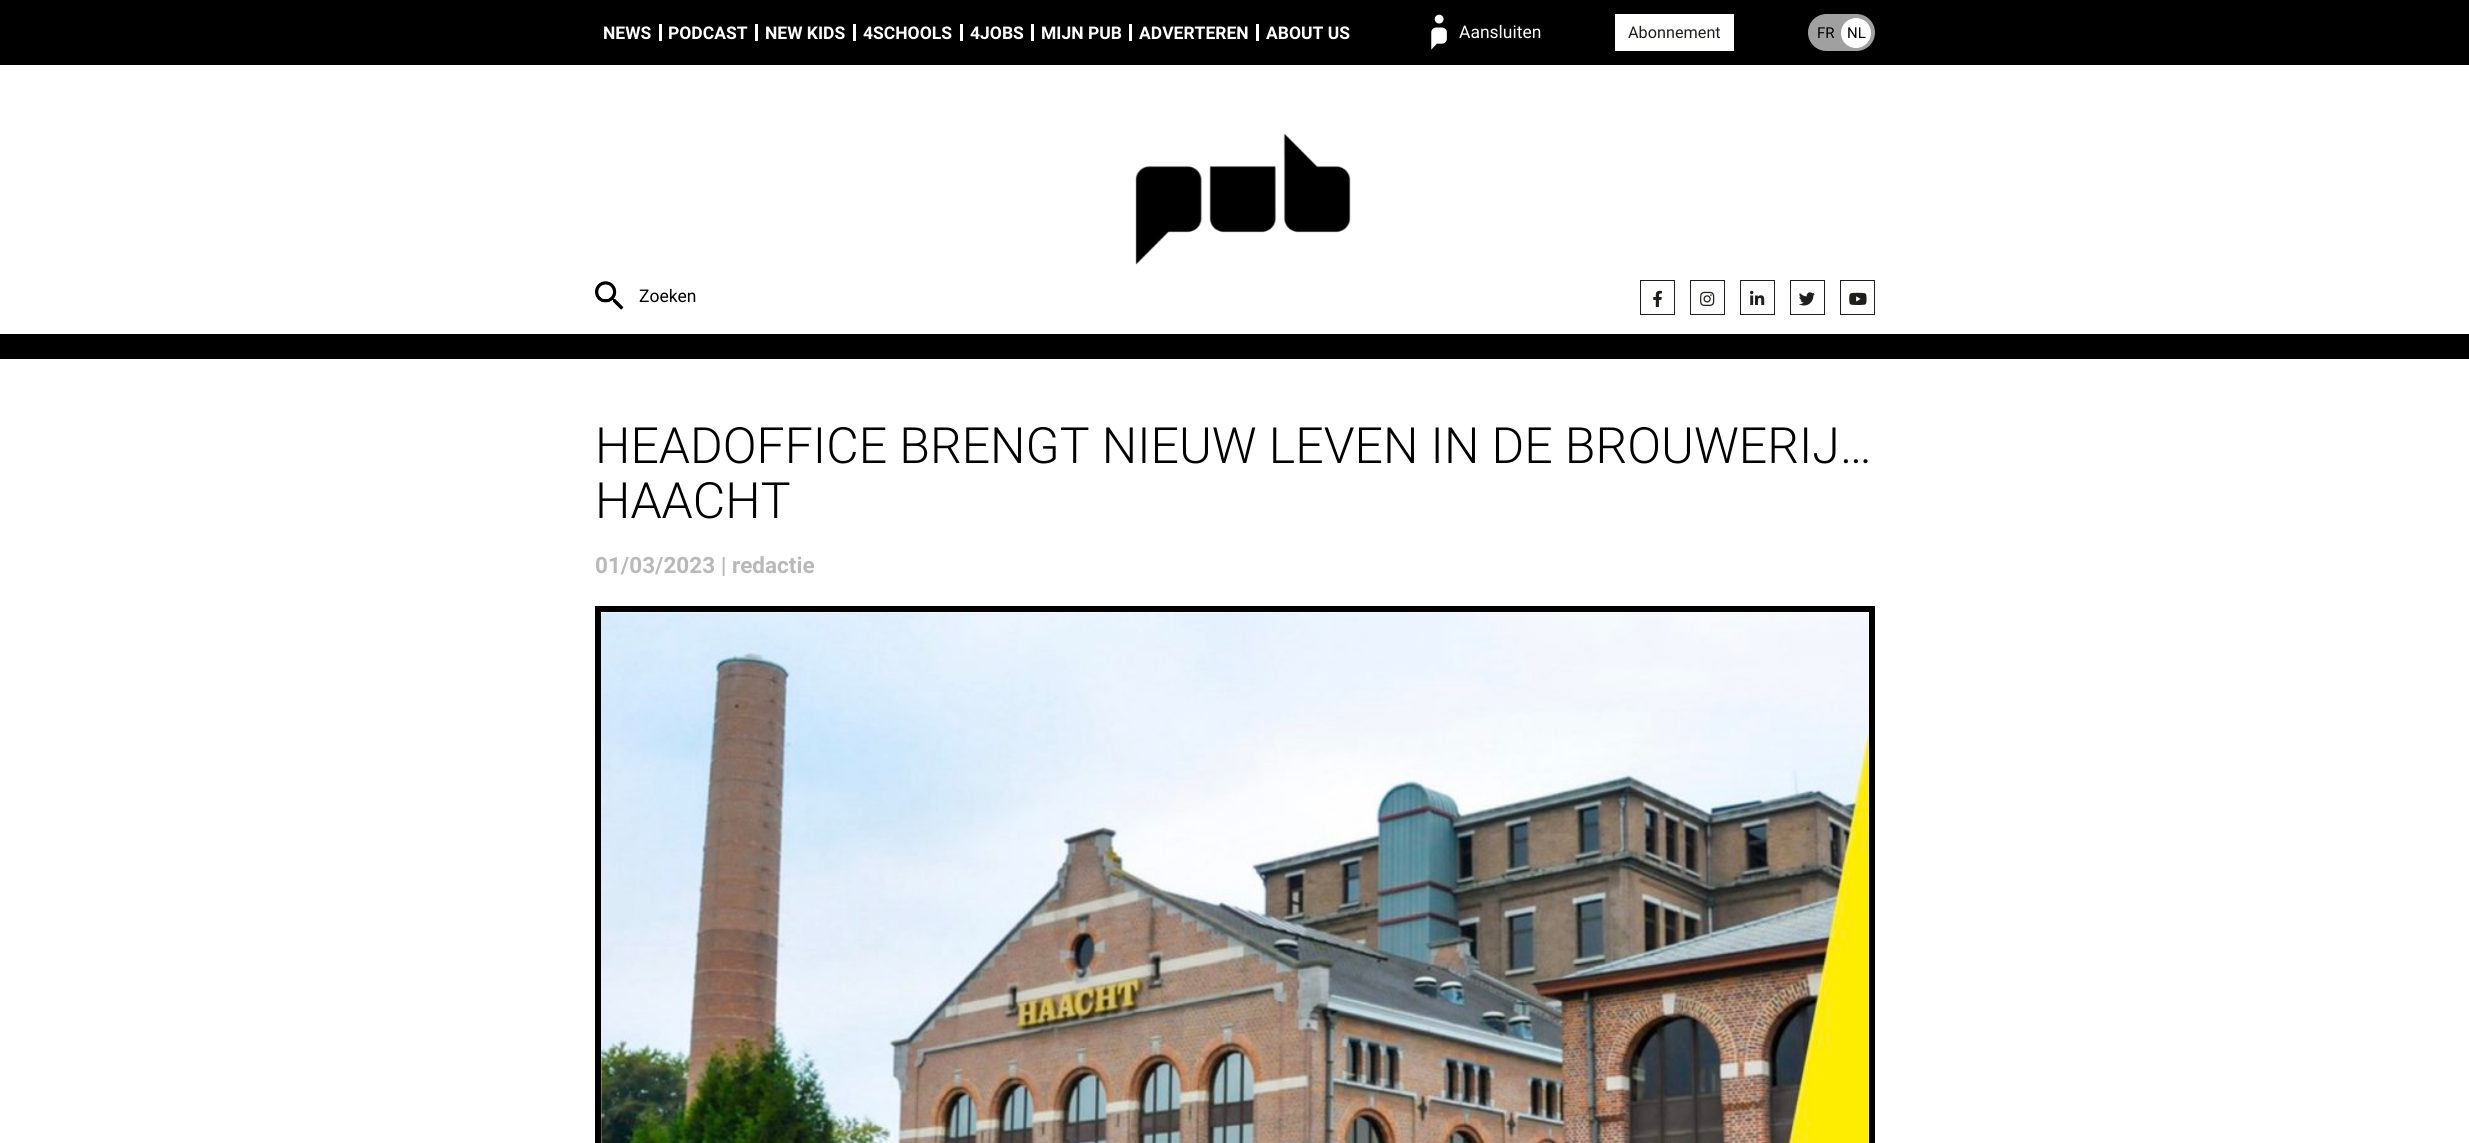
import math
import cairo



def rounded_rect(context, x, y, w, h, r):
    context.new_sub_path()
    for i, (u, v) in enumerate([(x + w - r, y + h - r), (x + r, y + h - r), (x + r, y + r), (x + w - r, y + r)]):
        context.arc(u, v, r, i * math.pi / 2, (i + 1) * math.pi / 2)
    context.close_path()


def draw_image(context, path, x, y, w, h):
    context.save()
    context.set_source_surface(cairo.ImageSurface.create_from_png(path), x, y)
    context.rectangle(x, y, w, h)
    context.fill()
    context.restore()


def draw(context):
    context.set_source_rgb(1, 1, 1)
    context.paint()
    context.set_source_rgb(0, 0, 0)
    context.rectangle(0, 0, 2469, 65)
    context.fill()
    context.set_source_rgb(1, 1, 1)
    context.rectangle(659, 24, 3, 17)
    context.fill()
    context.rectangle(755, 24, 3, 17)
    context.fill()
    context.rectangle(853, 24, 3, 17)
    context.fill()
    context.rectangle(960, 24, 3, 17)
    context.fill()
    context.rectangle(1031, 24, 3, 17)
    context.fill()
    context.rectangle(1129, 24, 3, 17)
    context.fill()
    context.rectangle(1256, 24, 3, 17)
    context.fill()
    draw_image(context, "images/1.png", 1431, 14, 16, 36)
    context.rectangle(1615.5, 14.5, 118, 36)
    context.set_line_width(1)
    context.stroke()
    context.rectangle(1616, 15, 117, 35)
    context.fill()
    context.set_source_rgb(160 / 255, 160 / 255, 160 / 255)
    rounded_rect(context, 1810, 16, 63, 33, 16.5)
    context.fill_preserve()
    context.set_line_width(4)
    context.stroke()
    context.set_source_rgb(1, 1, 1)
    context.arc(1856, 33, 15, 0, 2 * math.pi)
    context.fill()
    context.set_source_rgb(0, 0, 0)
    context.rectangle(0, 334, 2469, 25)
    context.fill()
    draw_image(context, "images/2.png", 1135, 133, 216, 132)
    draw_image(context, "images/3.png", 595, 281, 29, 29)
    context.rectangle(1640.5, 280.5, 34, 34)
    context.set_source_rgb(30 / 255, 30 / 255, 27 / 255)
    context.set_line_width(1)
    context.stroke()
    draw_image(context, "images/4.png", 1653, 290, 9, 17)
    context.rectangle(1690.5, 280.5, 34, 34)
    context.stroke()
    draw_image(context, "images/5.png", 1700, 291, 15, 15)
    context.rectangle(1740.5, 280.5, 34, 34)
    context.stroke()
    draw_image(context, "images/6.png", 1750, 290, 15, 15)
    context.rectangle(1790.5, 280.5, 34, 34)
    context.stroke()
    draw_image(context, "images/7.png", 1799, 292, 16, 14)
    context.rectangle(1840.5, 280.5, 34, 34)
    context.stroke()
    draw_image(context, "images/8.png", 1849, 292, 18, 13)
    context.rectangle(598, 609, 1274, 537)
    context.set_source_rgb(0, 0, 0)
    context.set_line_width(6)
    context.stroke()
    draw_image(context, "images/9.png", 601, 612, 1268, 531)
    context.select_font_face("Roboto", cairo.FontSlant.NORMAL, cairo.FontWeight.BOLD)
    context.set_font_size(17.5)
    context.set_source_rgb(1, 1, 1)
    context.move_to(603, 39)
    context.show_text("NEWS")
    context.move_to(668, 39)
    context.show_text("PODCAST")
    context.move_to(765, 39)
    context.show_text("NEW KIDS")
    context.move_to(863, 39)
    context.show_text("4SCHOOLS")
    context.move_to(970, 39)
    context.show_text("4JOBS")
    context.move_to(1041, 39)
    context.show_text("MIJN PUB")
    context.move_to(1139, 39)
    context.show_text("ADVERTEREN")
    context.move_to(1266, 39)
    context.show_text("ABOUT US")
    context.select_font_face("Roboto")
    context.move_to(1459, 38)
    context.show_text("Aansluiten")
    context.set_font_size(16.25)
    context.set_source_rgb(30 / 255, 30 / 255, 27 / 255)
    context.move_to(1628, 38)
    context.show_text("Abonnement")
    context.set_font_size(15)
    context.set_source_rgb(0, 0, 0)
    context.move_to(1817, 38)
    context.show_text("FR")
    context.move_to(1847, 38)
    context.show_text("NL")
    context.set_font_size(17.5)
    context.move_to(639, 302)
    context.show_text("Zoeken")
    context.select_font_face("Roboto Light")
    context.set_font_size(50)
    context.move_to(595, 463)
    context.show_text("HEADOFFICE BRENGT NIEUW LEVEN IN DE BROUWERIJ…")
    context.move_to(595, 518)
    context.show_text("HAACHT")
    context.select_font_face("Roboto", cairo.FontSlant.NORMAL, cairo.FontWeight.BOLD)
    context.set_font_size(22.5)
    context.set_source_rgb(185 / 255, 185 / 255, 185 / 255)
    context.move_to(595, 573)
    context.show_text("01/03/2023 | redactie")


surface = cairo.ImageSurface(cairo.Format.RGB24, 2469, 1143)
context = cairo.Context(surface)
options = cairo.FontOptions()
options.set_hint_metrics(cairo.HintMetrics.OFF)
options.set_hint_style(cairo.HintStyle.NONE)
context.set_font_options(options)
context.set_miter_limit(4)
draw(context)
surface.write_to_png("out.png")
